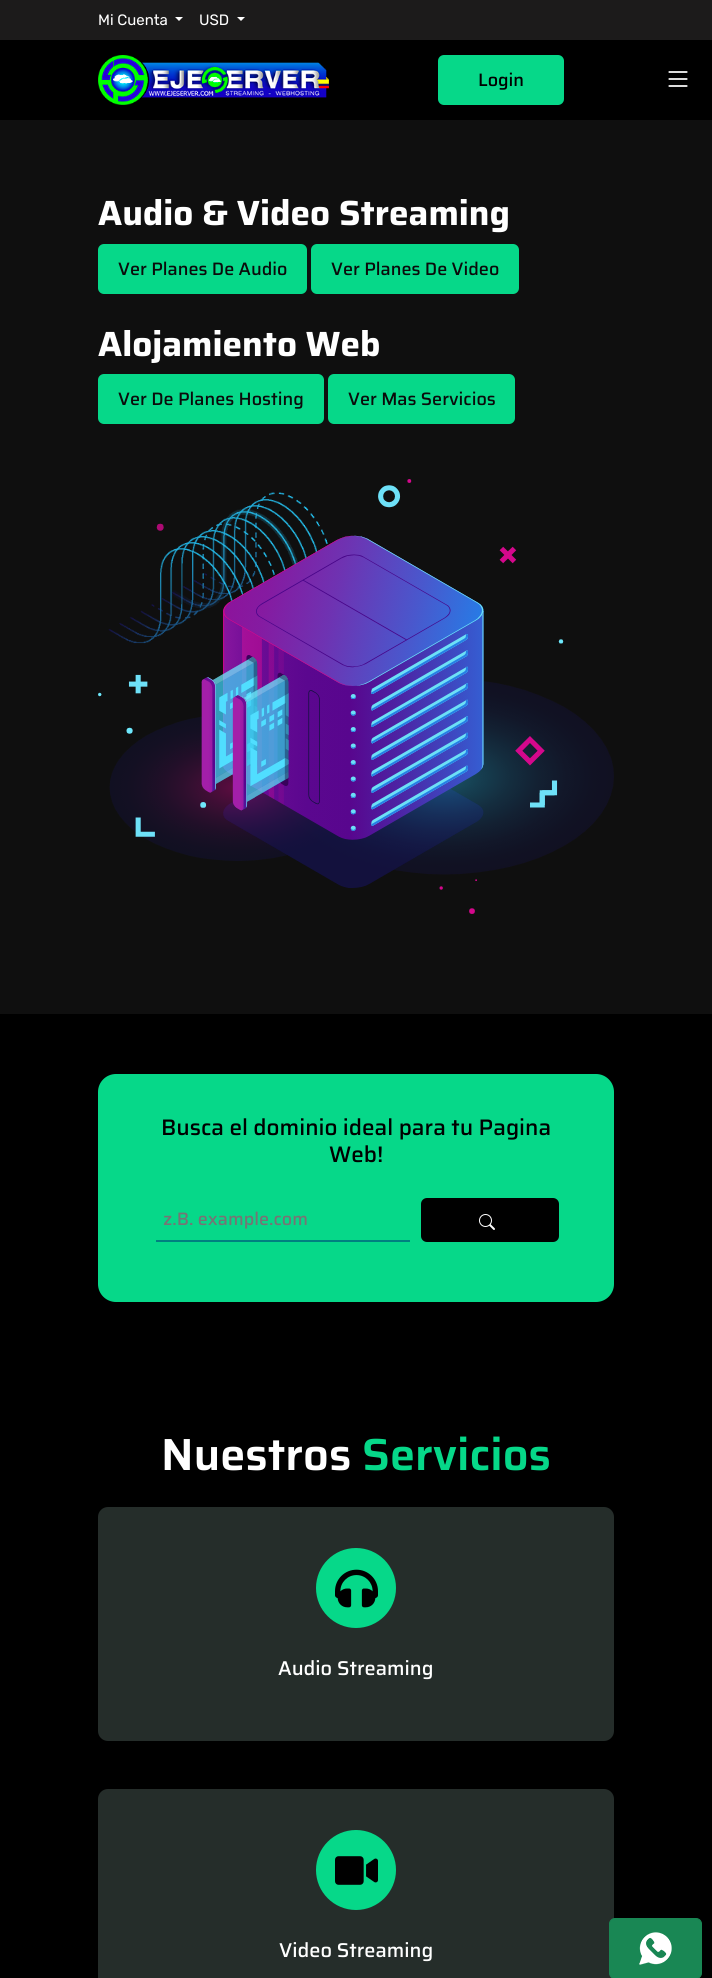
import math
import cairo



def rounded_rect(context, x, y, w, h, r):
    context.new_sub_path()
    for i, (u, v) in enumerate([(x + w - r, y + h - r), (x + r, y + h - r), (x + r, y + r), (x + w - r, y + r)]):
        context.arc(u, v, r, i * math.pi / 2, (i + 1) * math.pi / 2)
    context.close_path()


def draw_image(context, path, x, y, w, h):
    context.save()
    context.set_source_surface(cairo.ImageSurface.create_from_png(path), x, y)
    context.rectangle(x, y, w, h)
    context.fill()
    context.restore()


def draw(context):
    context.set_source_rgb(0, 0, 0)
    context.paint()
    context.set_source_rgb(28 / 255, 27 / 255, 27 / 255)
    context.rectangle(0, 0, 712, 40)
    context.fill()
    context.set_source_rgb(1, 1, 1)
    context.new_path()
    context.move_to(175, 17)
    context.line_to(183, 17)
    context.line_to(179, 21)
    context.close_path()
    context.fill()
    context.new_path()
    context.move_to(237, 17)
    context.line_to(245, 17)
    context.line_to(241, 21)
    context.close_path()
    context.fill()
    draw_image(context, "images/1.png", 98, 55, 231, 50)
    context.set_source_rgb(6 / 255, 216 / 255, 137 / 255)
    rounded_rect(context, 438, 55, 126, 50, 6)
    context.fill()
    draw_image(context, "images/2.png", 668, 71, 20, 16)
    context.set_source_rgb(15 / 255, 15 / 255, 15 / 255)
    context.rectangle(0, 120, 712, 894)
    context.fill()
    context.set_source_rgb(6 / 255, 216 / 255, 137 / 255)
    rounded_rect(context, 98, 244, 209, 50, 6)
    context.fill()
    rounded_rect(context, 311, 244, 208, 50, 6)
    context.fill()
    rounded_rect(context, 98, 374, 226, 50, 6)
    context.fill()
    rounded_rect(context, 328, 374, 187, 50, 6)
    context.fill()
    draw_image(context, "images/3.png", 98, 479, 516, 435)
    rounded_rect(context, 98, 1074, 516, 228, 18)
    context.fill()
    context.set_source_rgb(0, 128 / 255, 128 / 255)
    context.rectangle(156, 1240, 254, 2)
    context.fill()
    context.set_source_rgb(0, 0, 0)
    rounded_rect(context, 421, 1198, 138, 44, 6)
    context.fill()
    draw_image(context, "images/4.png", 479, 1214, 16, 16)
    context.set_source_rgb(37 / 255, 45 / 255, 42 / 255)
    rounded_rect(context, 98, 1507, 516, 234, 10)
    context.fill()
    context.set_source_rgb(6 / 255, 216 / 255, 137 / 255)
    context.arc(356, 1588, 40, 0, 2 * math.pi)
    context.fill()
    draw_image(context, "images/5.png", 335, 1569, 43, 39)
    context.set_source_rgb(37 / 255, 45 / 255, 42 / 255)
    rounded_rect(context, 98, 1789, 516, 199, 10)
    context.fill()
    context.set_source_rgb(6 / 255, 216 / 255, 137 / 255)
    context.arc(356, 1870, 40, 0, 2 * math.pi)
    context.fill()
    draw_image(context, "images/6.png", 335, 1856, 43, 29)
    context.set_source_rgb(25 / 255, 135 / 255, 84 / 255)
    rounded_rect(context, 609.5, 1918.5, 92, 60, 5.5)
    context.fill_preserve()
    context.set_line_width(1)
    context.stroke()
    draw_image(context, "images/7.png", 639, 1932, 33, 33)
    context.select_font_face("Rubik")
    context.set_font_size(15)
    context.set_source_rgb(1, 1, 1)
    context.move_to(98, 25)
    context.show_text("Mi Cuenta")
    context.move_to(199, 25)
    context.show_text("USD")
    context.select_font_face("Saira Medium")
    context.set_font_size(18)
    context.set_source_rgb(0, 0, 0)
    context.move_to(478, 86)
    context.show_text("Login")
    context.select_font_face("Saira", cairo.FontSlant.NORMAL, cairo.FontWeight.BOLD)
    context.set_font_size(35)
    context.set_source_rgb(1, 1, 1)
    context.move_to(98, 225)
    context.show_text("Audio & Video Streaming")
    context.select_font_face("Saira Medium")
    context.set_font_size(18)
    context.set_source_rgb(11 / 255, 11 / 255, 11 / 255)
    context.move_to(118, 275)
    context.show_text("Ver Planes De Audio")
    context.move_to(331, 275)
    context.show_text("Ver Planes De Video")
    context.select_font_face("Saira", cairo.FontSlant.NORMAL, cairo.FontWeight.BOLD)
    context.set_font_size(35)
    context.set_source_rgb(1, 1, 1)
    context.move_to(98, 356)
    context.show_text("Alojamiento Web")
    context.select_font_face("Saira Medium")
    context.set_font_size(18)
    context.set_source_rgb(11 / 255, 11 / 255, 11 / 255)
    context.move_to(118, 405)
    context.show_text("Ver De Planes Hosting")
    context.move_to(348, 405)
    context.show_text("Ver Mas Servicios")
    context.set_font_size(22.5)
    context.set_source_rgb(0, 0, 0)
    context.move_to(161, 1135)
    context.show_text("Busca el dominio ideal para tu Pagina")
    context.move_to(329, 1162)
    context.show_text("Web!")
    context.set_font_size(18)
    context.set_source_rgb(117 / 255, 117 / 255, 117 / 255)
    context.move_to(163, 1225)
    context.show_text("z.B. example.com")
    context.select_font_face("Saira SemiBold")
    context.set_font_size(45)
    context.set_source_rgb(1, 1, 1)
    context.move_to(161, 1470)
    context.show_text("Nuestros")
    context.set_source_rgb(6 / 255, 216 / 255, 137 / 255)
    context.move_to(362, 1470)
    context.show_text("Servicios")
    context.select_font_face("Saira Medium")
    context.set_font_size(20)
    context.set_source_rgb(1, 1, 1)
    context.move_to(278, 1675)
    context.show_text("Audio Streaming")
    context.move_to(279, 1957)
    context.show_text("Video Streaming")


surface = cairo.ImageSurface(cairo.Format.RGB24, 712, 1978)
context = cairo.Context(surface)
options = cairo.FontOptions()
options.set_hint_metrics(cairo.HintMetrics.OFF)
options.set_hint_style(cairo.HintStyle.NONE)
context.set_font_options(options)
context.set_miter_limit(4)
draw(context)
surface.write_to_png("out.png")
